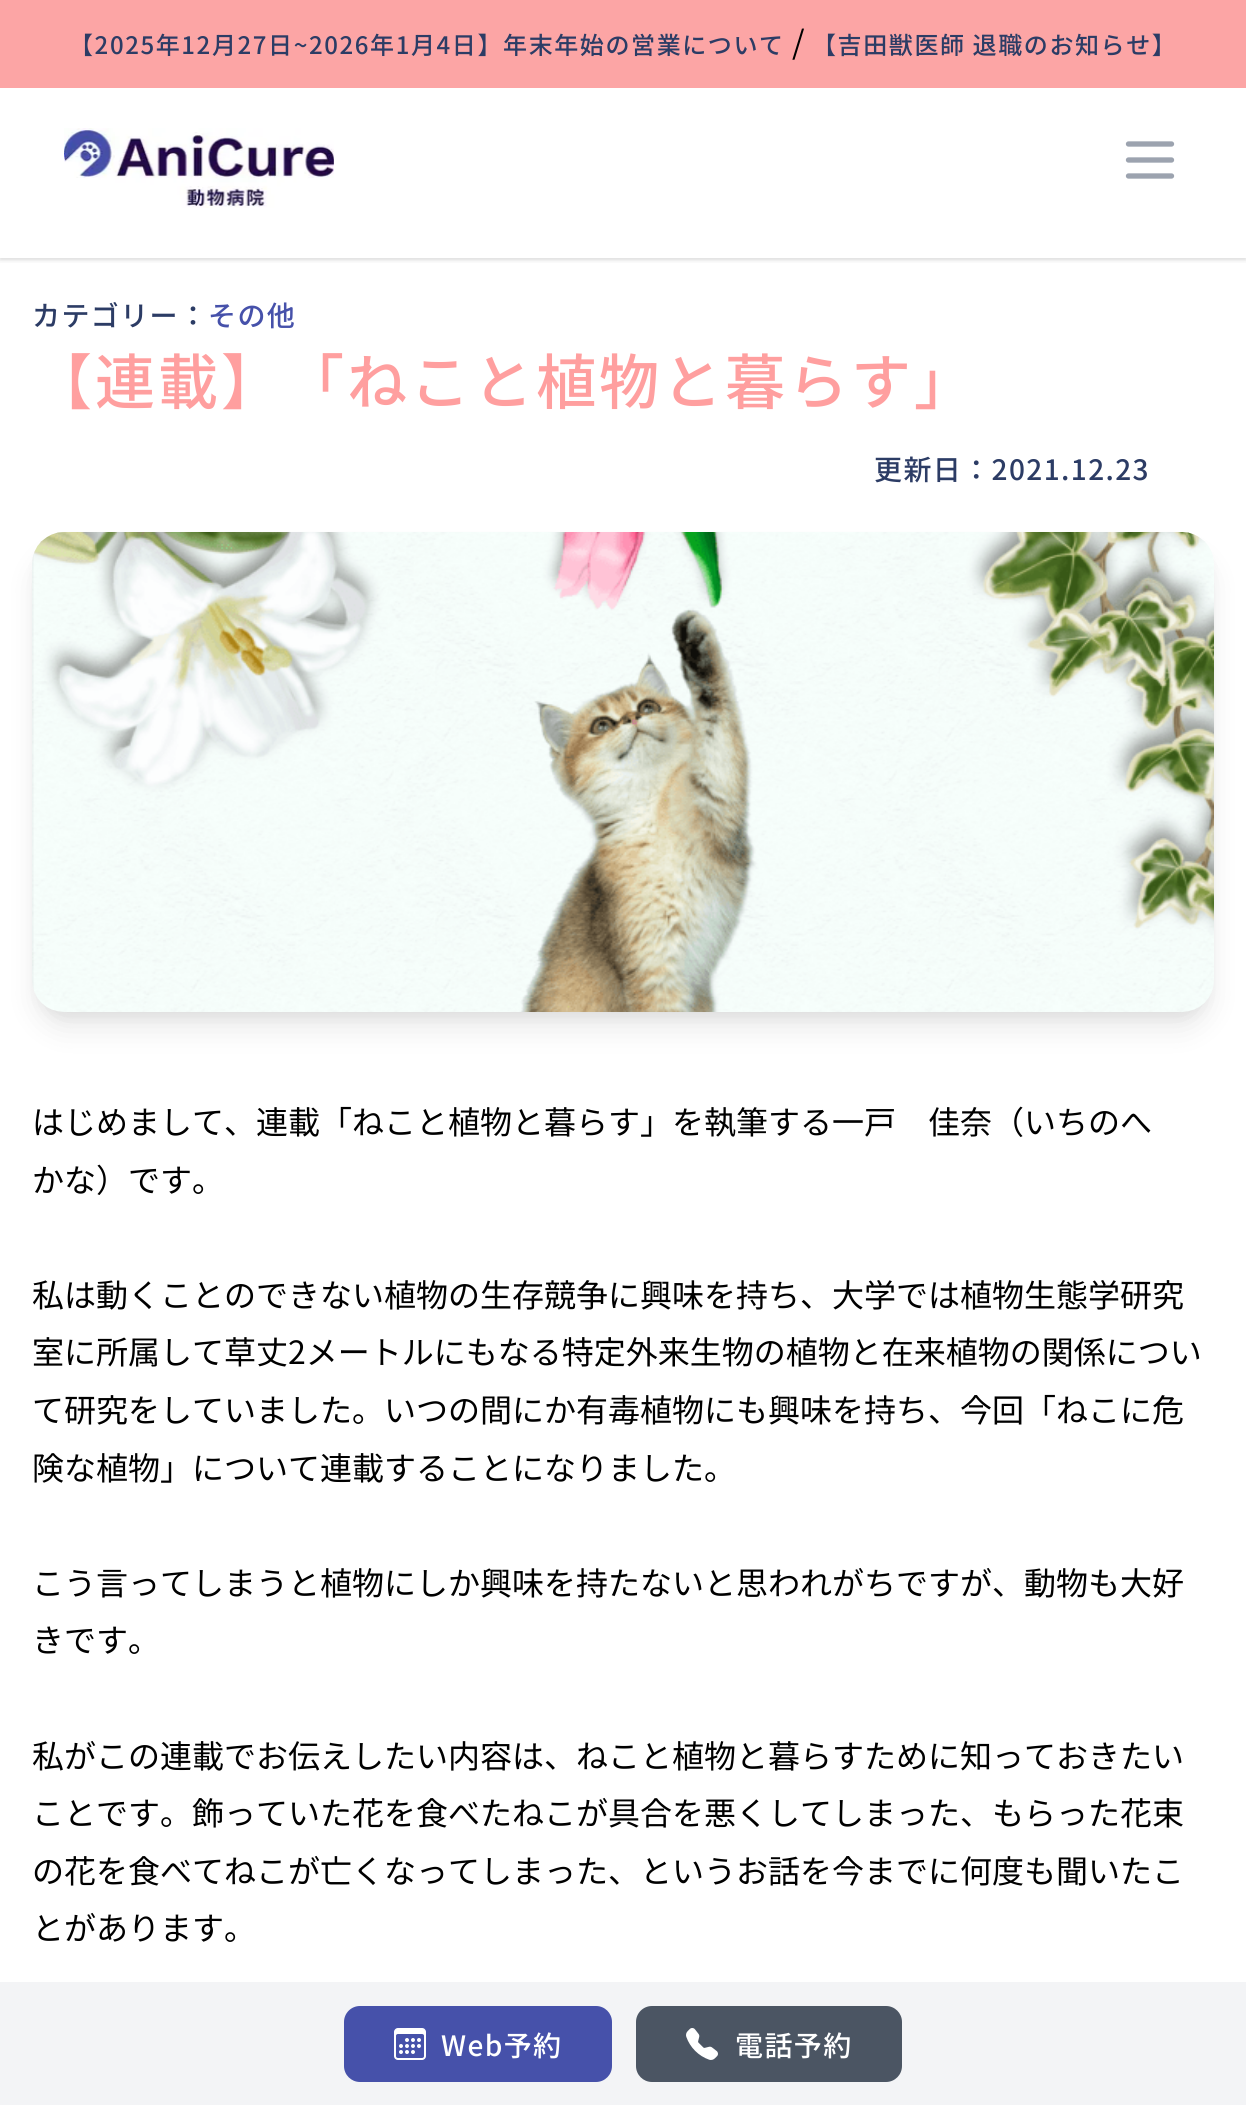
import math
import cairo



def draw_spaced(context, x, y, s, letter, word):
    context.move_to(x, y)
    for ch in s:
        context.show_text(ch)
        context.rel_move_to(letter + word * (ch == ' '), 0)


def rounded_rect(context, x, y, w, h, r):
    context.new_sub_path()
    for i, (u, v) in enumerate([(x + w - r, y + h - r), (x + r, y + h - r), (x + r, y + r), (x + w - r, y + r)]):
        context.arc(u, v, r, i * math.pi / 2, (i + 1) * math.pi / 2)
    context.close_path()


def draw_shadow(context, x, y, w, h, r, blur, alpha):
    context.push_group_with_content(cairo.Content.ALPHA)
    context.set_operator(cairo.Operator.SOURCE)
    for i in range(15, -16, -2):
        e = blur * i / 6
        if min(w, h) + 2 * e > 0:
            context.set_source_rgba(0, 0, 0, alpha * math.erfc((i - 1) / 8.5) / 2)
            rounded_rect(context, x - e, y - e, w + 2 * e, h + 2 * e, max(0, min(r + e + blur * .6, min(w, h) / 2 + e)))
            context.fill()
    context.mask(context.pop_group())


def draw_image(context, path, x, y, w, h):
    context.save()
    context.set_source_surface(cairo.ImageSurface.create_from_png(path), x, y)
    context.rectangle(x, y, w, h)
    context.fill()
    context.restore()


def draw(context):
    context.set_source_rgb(1, 1, 1)
    context.paint()
    context.save()
    context.rectangle(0, 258, 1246, 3)
    context.clip()
    context.set_source_rgb(0, 0, 0)
    draw_shadow(context, 0, 2, 1246, 258, 0, 2, 0.06)
    context.restore()
    context.save()
    context.rectangle(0, 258, 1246, 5)
    context.clip()
    context.set_source_rgb(0, 0, 0)
    draw_shadow(context, 0, 2, 1246, 258, 0, 3, 0.1)
    context.restore()
    context.set_source_rgb(252 / 255, 165 / 255, 165 / 255)
    context.rectangle(0, 0, 1246, 88)
    context.fill()
    draw_image(context, "images/1.png", 64, 128, 270, 80)
    context.new_path()
    context.move_to(1128.5, 144)
    context.line_to(1171.5, 144)
    context.move_to(1128.5, 160)
    context.line_to(1171.5, 160)
    context.move_to(1128.5, 176)
    context.line_to(1171.5, 176)
    context.set_source_rgb(156 / 255, 163 / 255, 175 / 255)
    context.set_line_width(5.3)
    context.set_line_cap(cairo.LineCap.ROUND)
    context.set_line_join(cairo.LineJoin.ROUND)
    context.stroke()
    context.set_source_rgb(243 / 255, 244 / 255, 246 / 255)
    context.rectangle(0, 1982, 1246, 123)
    context.fill()
    context.set_source_rgb(70 / 255, 81 / 255, 170 / 255)
    rounded_rect(context, 344, 2006, 268, 76, 16)
    context.fill()
    draw_image(context, "images/2.png", 394, 2028, 32, 32)
    context.set_source_rgb(75 / 255, 85 / 255, 99 / 255)
    rounded_rect(context, 636, 2006, 266, 76, 16)
    context.fill()
    draw_image(context, "images/3.png", 686, 2028, 32, 32)
    context.set_source_rgb(0, 0, 0)
    draw_shadow(context, 36, 544, 1174, 472, 28, 6, 0.05)
    draw_shadow(context, 38, 558, 1170, 468, 26, 15, 0.1)
    draw_image(context, "images/4.png", 32, 532, 1182, 480)
    context.select_font_face("Noto Sans JP Medium")
    context.set_font_size(24)
    context.set_source_rgb(44 / 255, 60 / 255, 101 / 255)
    draw_spaced(context, 69, 54, "【2025年12月27日~2026年1月4日】年末年始の営業について", 1.6, 0)
    context.select_font_face("Noto Sans JP")
    context.set_font_size(32)
    context.set_source_rgb(0, 0, 0)
    context.move_to(792, 54)
    context.show_text("/")
    context.select_font_face("Noto Sans JP Medium")
    context.set_font_size(24)
    context.set_source_rgb(44 / 255, 60 / 255, 101 / 255)
    draw_spaced(context, 812, 54, "【吉田獣医師 退職のお知らせ】", 1.6, 0)
    context.set_font_size(28)
    context.set_source_rgb(1, 1, 1)
    draw_spaced(context, 441, 2056, "Web予約", 1.4, 0)
    draw_spaced(context, 735, 2056, "電話予約", 1.4, 0)
    context.set_source_rgb(44 / 255, 60 / 255, 101 / 255)
    draw_spaced(context, 32, 326, "カテゴリー：", 1.4, 0)
    context.set_source_rgb(70 / 255, 81 / 255, 170 / 255)
    draw_spaced(context, 208, 326, "その他", 1.4, 0)
    context.set_font_size(60)
    context.set_source_rgb(1, 159 / 255, 159 / 255)
    draw_spaced(context, 32, 404, "【連載】「ねこと植物と暮らす」", 3, 0)
    context.set_font_size(28)
    context.set_source_rgb(44 / 255, 60 / 255, 101 / 255)
    draw_spaced(context, 874, 480, "更新日：2021.12.23", 1.4, 0)
    context.select_font_face("Noto Sans JP")
    context.set_font_size(32)
    context.set_source_rgb(0, 0, 0)
    context.move_to(32, 1134)
    context.show_text("はじめまして、連載「ねこと植物と暮らす」を執筆する一戸　佳奈（いちのへ")
    context.move_to(32, 1192)
    context.show_text("かな）です。")
    context.move_to(32, 1307)
    context.show_text("私は動くことのできない植物の生存競争に興味を持ち、大学では植物生態学研究")
    context.move_to(32, 1364)
    context.show_text("室に所属して草丈2メートルにもなる特定外来生物の植物と在来植物の関係につい")
    context.move_to(32, 1422)
    context.show_text("て研究をしていました。いつの間にか有毒植物にも興味を持ち、今回「ねこに危")
    context.move_to(32, 1480)
    context.show_text("険な植物」について連載することになりました。")
    context.move_to(32, 1595)
    context.show_text("こう言ってしまうと植物にしか興味を持たないと思われがちですが、動物も大好")
    context.move_to(32, 1652)
    context.show_text("きです。")
    context.move_to(32, 1768)
    context.show_text("私がこの連載でお伝えしたい内容は、ねこと植物と暮らすために知っておきたい")
    context.move_to(32, 1825)
    context.show_text("ことです。飾っていた花を食べたねこが具合を悪くしてしまった、もらった花束")
    context.move_to(32, 1883)
    context.show_text("の花を食べてねこが亡くなってしまった、というお話を今までに何度も聞いたこ")
    context.move_to(32, 1940)
    context.show_text("とがあります。")


surface = cairo.ImageSurface(cairo.Format.RGB24, 1246, 2105)
context = cairo.Context(surface)
options = cairo.FontOptions()
options.set_hint_metrics(cairo.HintMetrics.OFF)
options.set_hint_style(cairo.HintStyle.NONE)
context.set_font_options(options)
context.set_miter_limit(4)
draw(context)
surface.write_to_png("out.png")
